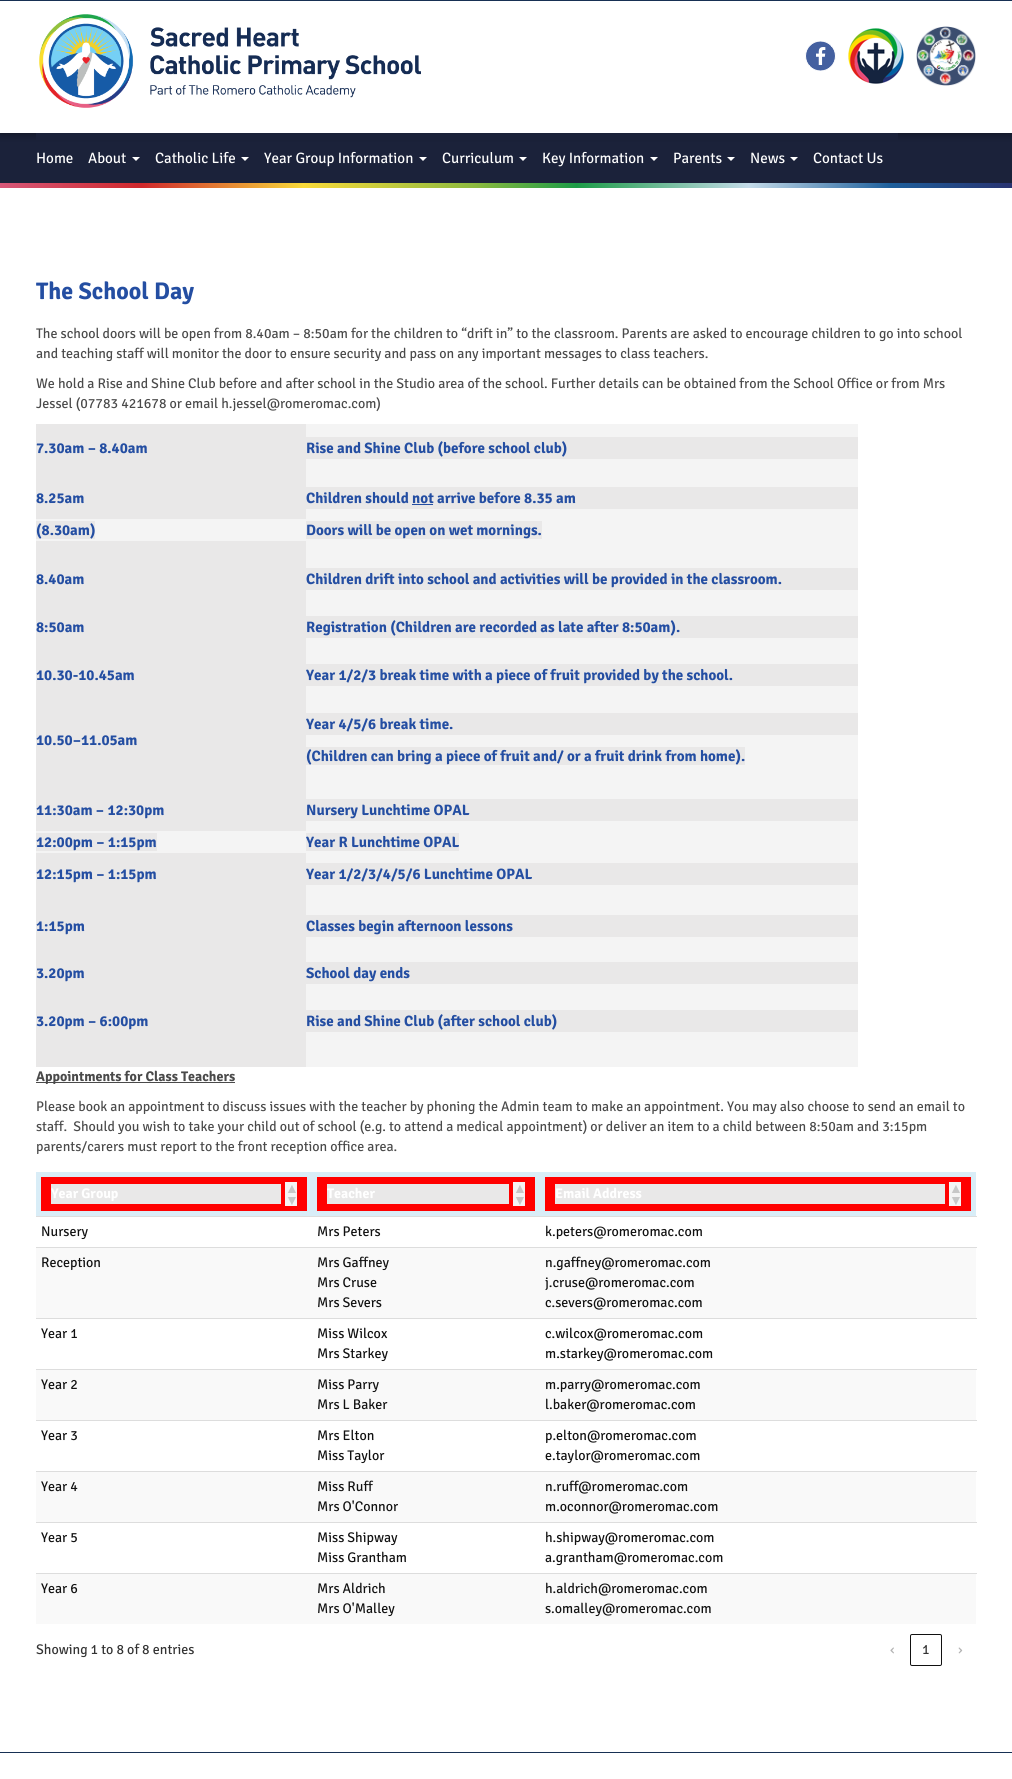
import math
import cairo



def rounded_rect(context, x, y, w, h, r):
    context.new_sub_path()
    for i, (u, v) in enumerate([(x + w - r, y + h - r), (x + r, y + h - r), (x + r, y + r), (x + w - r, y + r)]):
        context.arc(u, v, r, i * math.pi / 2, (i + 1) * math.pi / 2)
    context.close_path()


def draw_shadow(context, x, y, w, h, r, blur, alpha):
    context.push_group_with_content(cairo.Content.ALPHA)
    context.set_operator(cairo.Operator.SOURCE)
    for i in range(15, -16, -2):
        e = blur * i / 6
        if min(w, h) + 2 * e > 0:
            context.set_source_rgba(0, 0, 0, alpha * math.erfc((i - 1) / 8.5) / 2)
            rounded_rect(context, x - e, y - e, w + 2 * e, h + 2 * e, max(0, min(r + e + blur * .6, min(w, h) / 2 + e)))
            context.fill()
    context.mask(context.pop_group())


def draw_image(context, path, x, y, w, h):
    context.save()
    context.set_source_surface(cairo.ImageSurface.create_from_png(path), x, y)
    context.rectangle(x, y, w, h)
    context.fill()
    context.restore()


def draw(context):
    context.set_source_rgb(1, 1, 1)
    context.paint()
    context.set_source_rgb(27 / 255, 34 / 255, 58 / 255)
    context.rectangle(0, 133, 1012, 50)
    context.fill()
    context.save()
    context.rectangle(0, 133, 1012, 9)
    context.clip()
    context.set_source_rgb(0, 0, 0)
    draw_shadow(context, 0, 1, 1012, 132, 0, 5, 0.5)
    context.restore()
    draw_image(context, "images/1.png", 39, 14, 382, 94)
    draw_image(context, "images/2.png", 805, 41, 31, 30)
    draw_image(context, "images/3.png", 848, 28, 56, 56)
    draw_image(context, "images/4.png", 916, 26, 60, 60)
    context.set_source_rgb(23 / 255, 48 / 255, 83 / 255)
    context.rectangle(0, 0, 1012, 1)
    context.fill()
    context.set_source_rgb(27 / 255, 34 / 255, 58 / 255)
    context.rectangle(36, 133, 862, 7)
    context.fill()
    context.set_source_rgb(1, 1, 1)
    context.new_path()
    context.move_to(132, 157)
    context.line_to(140, 157)
    context.line_to(136, 161)
    context.close_path()
    context.fill()
    context.new_path()
    context.move_to(241, 157)
    context.line_to(249, 157)
    context.line_to(245, 161)
    context.close_path()
    context.fill()
    context.new_path()
    context.move_to(419, 157)
    context.line_to(427, 157)
    context.line_to(423, 161)
    context.close_path()
    context.fill()
    context.new_path()
    context.move_to(519, 157)
    context.line_to(527, 157)
    context.line_to(523, 161)
    context.close_path()
    context.fill()
    context.new_path()
    context.move_to(650, 157)
    context.line_to(658, 157)
    context.line_to(654, 161)
    context.close_path()
    context.fill()
    context.new_path()
    context.move_to(727, 157)
    context.line_to(735, 157)
    context.line_to(731, 161)
    context.close_path()
    context.fill()
    context.new_path()
    context.move_to(790, 157)
    context.line_to(798, 157)
    context.line_to(794, 161)
    context.close_path()
    context.fill()
    gradient = cairo.LinearGradient(0, 186, 1012, 185)
    gradient.add_color_stop_rgba(0, 215 / 255, 88 / 255, 121 / 255, 1)
    gradient.add_color_stop_rgba(0.14, 207 / 255, 40 / 255, 44 / 255, 1)
    gradient.add_color_stop_rgba(0.3, 249 / 255, 218 / 255, 58 / 255, 1)
    gradient.add_color_stop_rgba(0.47, 140 / 255, 186 / 255, 63 / 255, 1)
    gradient.add_color_stop_rgba(0.57, 28 / 255, 155 / 255, 71 / 255, 1)
    gradient.add_color_stop_rgba(0.74, 196 / 255, 219 / 255, 233 / 255, 1)
    gradient.add_color_stop_rgba(0.88, 30 / 255, 95 / 255, 155 / 255, 1)
    gradient.add_color_stop_rgba(1, 41 / 255, 51 / 255, 112 / 255, 1)
    context.set_source(gradient)
    context.rectangle(0, 183, 1012, 5)
    context.fill()
    context.set_source_rgb(233 / 255, 232 / 255, 232 / 255)
    context.rectangle(36, 424, 270, 643)
    context.fill()
    context.set_source_rgb(244 / 255, 244 / 255, 244 / 255)
    context.rectangle(306, 424, 552, 643)
    context.fill()
    context.set_source_rgb(233 / 255, 232 / 255, 232 / 255)
    context.rectangle(306, 437, 552, 22)
    context.fill()
    context.set_source_rgb(244 / 255, 244 / 255, 244 / 255)
    context.rectangle(36, 519, 270, 22)
    context.fill()
    context.set_source_rgb(233 / 255, 232 / 255, 232 / 255)
    context.rectangle(36, 521, 59, 18)
    context.fill()
    context.rectangle(306, 487, 552, 22)
    context.fill()
    context.set_source_rgb(36 / 255, 78 / 255, 162 / 255)
    context.rectangle(412, 504, 21, 1)
    context.fill()
    context.set_source_rgb(233 / 255, 232 / 255, 232 / 255)
    context.rectangle(306, 521, 236, 18)
    context.fill()
    context.rectangle(306, 568, 552, 22)
    context.fill()
    context.rectangle(306, 616, 552, 22)
    context.fill()
    context.rectangle(306, 664, 552, 22)
    context.fill()
    context.rectangle(306, 713, 552, 22)
    context.fill()
    context.rectangle(306, 747, 439, 18)
    context.fill()
    context.set_source_rgb(244 / 255, 244 / 255, 244 / 255)
    context.rectangle(36, 831, 270, 22)
    context.fill()
    context.set_source_rgb(233 / 255, 232 / 255, 232 / 255)
    context.rectangle(36, 833, 121, 18)
    context.fill()
    context.rectangle(306, 799, 552, 22)
    context.fill()
    context.rectangle(306, 833, 153, 18)
    context.fill()
    context.rectangle(306, 863, 552, 22)
    context.fill()
    context.rectangle(306, 915, 552, 22)
    context.fill()
    context.rectangle(306, 962, 552, 22)
    context.fill()
    context.rectangle(306, 1010, 552, 22)
    context.fill()
    context.set_source_rgb(74 / 255, 74 / 255, 74 / 255)
    context.rectangle(36, 1082, 199, 1)
    context.fill()
    context.set_source_rgb(217 / 255, 237 / 255, 247 / 255)
    context.rectangle(36, 1172, 940, 44)
    context.fill()
    context.set_source_rgb(1, 0, 0)
    context.rectangle(41, 1177, 266, 34)
    context.fill()
    context.set_source_rgb(233 / 255, 232 / 255, 232 / 255)
    context.rectangle(51, 1184, 230, 20)
    context.fill()
    context.set_source_rgb(244 / 255, 244 / 255, 244 / 255)
    context.rectangle(285, 1182, 12, 24)
    context.fill()
    context.set_source_rgb(1, 0, 0)
    context.rectangle(317, 1177, 218, 34)
    context.fill()
    context.set_source_rgb(233 / 255, 232 / 255, 232 / 255)
    context.rectangle(327, 1184, 182, 20)
    context.fill()
    context.set_source_rgb(244 / 255, 244 / 255, 244 / 255)
    context.rectangle(513, 1182, 12, 24)
    context.fill()
    context.set_source_rgb(1, 0, 0)
    context.rectangle(545, 1177, 426, 34)
    context.fill()
    context.set_source_rgb(233 / 255, 232 / 255, 232 / 255)
    context.rectangle(555, 1184, 390, 20)
    context.fill()
    context.set_source_rgb(244 / 255, 244 / 255, 244 / 255)
    context.rectangle(949, 1182, 12, 24)
    context.fill()
    context.set_source_rgb(221 / 255, 221 / 255, 221 / 255)
    context.rectangle(36, 1216, 941, 1)
    context.fill()
    context.set_source_rgb(249 / 255, 249 / 255, 249 / 255)
    context.rectangle(36, 1248, 940, 70)
    context.fill()
    context.set_source_rgb(221 / 255, 221 / 255, 221 / 255)
    context.rectangle(36, 1247, 941, 1)
    context.fill()
    context.rectangle(36, 1318, 941, 1)
    context.fill()
    context.set_source_rgb(249 / 255, 249 / 255, 249 / 255)
    context.rectangle(36, 1370, 940, 50)
    context.fill()
    context.set_source_rgb(221 / 255, 221 / 255, 221 / 255)
    context.rectangle(36, 1369, 941, 1)
    context.fill()
    context.rectangle(36, 1420, 941, 1)
    context.fill()
    context.set_source_rgb(249 / 255, 249 / 255, 249 / 255)
    context.rectangle(36, 1472, 940, 50)
    context.fill()
    context.set_source_rgb(221 / 255, 221 / 255, 221 / 255)
    context.rectangle(36, 1471, 941, 1)
    context.fill()
    context.rectangle(36, 1522, 941, 1)
    context.fill()
    context.set_source_rgb(249 / 255, 249 / 255, 249 / 255)
    context.rectangle(36, 1574, 940, 50)
    context.fill()
    context.set_source_rgb(221 / 255, 221 / 255, 221 / 255)
    context.rectangle(36, 1573, 941, 1)
    context.fill()
    rounded_rect(context, 910.5, 1634.5, 31, 31, 1.5)
    context.set_source_rgb(17 / 255, 17 / 255, 17 / 255)
    context.set_line_width(1)
    context.stroke()
    context.set_source_rgb(23 / 255, 48 / 255, 83 / 255)
    context.rectangle(0, 1752, 1012, 1)
    context.fill()
    context.select_font_face("Signika Negative")
    context.set_font_size(15)
    context.set_source_rgb(1, 1, 1)
    context.move_to(36, 163)
    context.show_text("Home")
    context.move_to(88, 163)
    context.show_text("About")
    context.move_to(155, 163)
    context.show_text("Catholic Life")
    context.move_to(264, 163)
    context.show_text("Year Group Information")
    context.move_to(442, 163)
    context.show_text("Curriculum")
    context.move_to(542, 163)
    context.show_text("Key Information")
    context.move_to(673, 163)
    context.show_text("Parents")
    context.move_to(750, 163)
    context.show_text("News")
    context.move_to(813, 163)
    context.show_text("Contact Us")
    context.select_font_face("Signika Negative", cairo.FontSlant.NORMAL, cairo.FontWeight.BOLD)
    context.set_font_size(24)
    context.set_source_rgb(36 / 255, 78 / 255, 162 / 255)
    context.move_to(36, 299)
    context.show_text("The School Day")
    context.select_font_face("Signika Negative")
    context.set_font_size(14)
    context.set_source_rgb(74 / 255, 74 / 255, 74 / 255)
    context.move_to(36, 338)
    context.show_text("The school doors will be open from 8.40am – 8:50am for the children to “drift in” to the classroom. Parents are asked to encourage children to go into school")
    context.move_to(36, 358)
    context.show_text("and teaching staff will monitor the door to ensure security and pass on any important messages to class teachers.")
    context.move_to(36, 388)
    context.show_text("We hold a Rise and Shine Club before and after school in the Studio area of the school. Further details can be obtained from the School Office or from Mrs")
    context.move_to(36, 408)
    context.show_text("Jessel (07783 421678 or email h.jessel@romeromac.com)")
    context.select_font_face("Signika Negative", cairo.FontSlant.NORMAL, cairo.FontWeight.BOLD)
    context.set_font_size(15)
    context.set_source_rgb(36 / 255, 78 / 255, 162 / 255)
    context.move_to(36, 453)
    context.show_text("7.30am – 8.40am")
    context.move_to(306, 453)
    context.show_text("Rise and Shine Club (before school club)")
    context.move_to(36, 503)
    context.show_text("8.25am")
    context.move_to(36, 535)
    context.show_text("(8.30am)")
    context.move_to(306, 503)
    context.show_text("Children should not arrive before 8.35 am")
    context.move_to(306, 535)
    context.show_text("Doors will be open on wet mornings.")
    context.move_to(36, 584)
    context.show_text("8.40am")
    context.move_to(306, 584)
    context.show_text("Children drift into school and activities will be provided in the classroom.")
    context.move_to(36, 632)
    context.show_text("8:50am")
    context.move_to(306, 632)
    context.show_text("Registration (Children are recorded as late after 8:50am).")
    context.move_to(36, 680)
    context.show_text("10.30-10.45am")
    context.move_to(306, 680)
    context.show_text("Year 1/2/3 break time with a piece of fruit provided by the school.")
    context.move_to(36, 745)
    context.show_text("10.50–11.05am")
    context.move_to(306, 729)
    context.show_text("Year 4/5/6 break time.")
    context.move_to(306, 761)
    context.show_text("(Children can bring a piece of fruit and/ or a fruit drink from home).")
    context.move_to(36, 815)
    context.show_text("11:30am – 12:30pm")
    context.move_to(36, 847)
    context.show_text("12:00pm – 1:15pm")
    context.move_to(36, 879)
    context.show_text("12:15pm – 1:15pm")
    context.move_to(306, 815)
    context.show_text("Nursery Lunchtime OPAL")
    context.move_to(306, 847)
    context.show_text("Year R Lunchtime OPAL")
    context.move_to(306, 879)
    context.show_text("Year 1/2/3/4/5/6 Lunchtime OPAL")
    context.move_to(36, 931)
    context.show_text("1:15pm")
    context.move_to(306, 931)
    context.show_text("Classes begin afternoon lessons")
    context.move_to(36, 978)
    context.show_text("3.20pm")
    context.move_to(306, 978)
    context.show_text("School day ends")
    context.move_to(36, 1026)
    context.show_text("3.20pm – 6:00pm")
    context.move_to(306, 1026)
    context.show_text("Rise and Shine Club (after school club)")
    context.set_font_size(14)
    context.set_source_rgb(74 / 255, 74 / 255, 74 / 255)
    context.move_to(36, 1081)
    context.show_text("Appointments for Class Teachers")
    context.select_font_face("Signika Negative")
    context.move_to(36, 1111)
    context.show_text("Please book an appointment to discuss issues with the teacher by phoning the Admin team to make an appointment. You may also choose to send an email to")
    context.move_to(36, 1131)
    context.show_text("staff.  Should you wish to take your child out of school (e.g. to attend a medical appointment) or deliver an item to a child between 8:50am and 3:15pm")
    context.move_to(36, 1151)
    context.show_text("parents/carers must report to the front reception office area.")
    context.select_font_face("Signika Negative", cairo.FontSlant.NORMAL, cairo.FontWeight.BOLD)
    context.set_source_rgb(1, 1, 1)
    context.move_to(51, 1198)
    context.show_text("Year Group")
    context.select_font_face("Liberation Sans", cairo.FontSlant.NORMAL, cairo.FontWeight.BOLD)
    context.set_source_rgb(199 / 255, 199 / 255, 199 / 255)
    context.move_to(285, 1193)
    context.show_text("▲")
    context.move_to(285, 1205)
    context.show_text("▼")
    context.select_font_face("Signika Negative", cairo.FontSlant.NORMAL, cairo.FontWeight.BOLD)
    context.set_source_rgb(1, 1, 1)
    context.move_to(327, 1198)
    context.show_text("Teacher")
    context.select_font_face("Liberation Sans", cairo.FontSlant.NORMAL, cairo.FontWeight.BOLD)
    context.set_source_rgb(199 / 255, 199 / 255, 199 / 255)
    context.move_to(513, 1193)
    context.show_text("▲")
    context.move_to(513, 1205)
    context.show_text("▼")
    context.select_font_face("Signika Negative", cairo.FontSlant.NORMAL, cairo.FontWeight.BOLD)
    context.set_source_rgb(1, 1, 1)
    context.move_to(555, 1198)
    context.show_text("Email Address")
    context.select_font_face("Liberation Sans", cairo.FontSlant.NORMAL, cairo.FontWeight.BOLD)
    context.set_source_rgb(199 / 255, 199 / 255, 199 / 255)
    context.move_to(949, 1193)
    context.show_text("▲")
    context.move_to(949, 1205)
    context.show_text("▼")
    context.select_font_face("Signika Negative")
    context.set_source_rgb(17 / 255, 17 / 255, 17 / 255)
    context.move_to(41, 1236)
    context.show_text("Nursery")
    context.move_to(317, 1236)
    context.show_text("Mrs Peters")
    context.move_to(545, 1236)
    context.show_text("k.peters@romeromac.com")
    context.move_to(41, 1267)
    context.show_text("Reception")
    context.move_to(317, 1267)
    context.show_text("Mrs Gaffney")
    context.move_to(317, 1287)
    context.show_text("Mrs Cruse")
    context.move_to(317, 1307)
    context.show_text("Mrs Severs")
    context.move_to(545, 1267)
    context.show_text("n.gaffney@romeromac.com")
    context.move_to(545, 1287)
    context.show_text("j.cruse@romeromac.com")
    context.move_to(545, 1307)
    context.show_text("c.severs@romeromac.com")
    context.move_to(41, 1338)
    context.show_text("Year 1")
    context.move_to(317, 1338)
    context.show_text("Miss Wilcox")
    context.move_to(317, 1358)
    context.show_text("Mrs Starkey")
    context.move_to(545, 1338)
    context.show_text("c.wilcox@romeromac.com")
    context.move_to(545, 1358)
    context.show_text("m.starkey@romeromac.com")
    context.move_to(41, 1389)
    context.show_text("Year 2")
    context.move_to(317, 1389)
    context.show_text("Miss Parry")
    context.move_to(317, 1409)
    context.show_text("Mrs L Baker")
    context.move_to(545, 1389)
    context.show_text("m.parry@romeromac.com")
    context.move_to(545, 1409)
    context.show_text("l.baker@romeromac.com")
    context.move_to(41, 1440)
    context.show_text("Year 3")
    context.move_to(317, 1440)
    context.show_text("Mrs Elton")
    context.move_to(317, 1460)
    context.show_text("Miss Taylor")
    context.move_to(545, 1440)
    context.show_text("p.elton@romeromac.com")
    context.move_to(545, 1460)
    context.show_text("e.taylor@romeromac.com")
    context.move_to(41, 1491)
    context.show_text("Year 4")
    context.move_to(317, 1491)
    context.show_text("Miss Ruff")
    context.move_to(317, 1511)
    context.show_text("Mrs O'Connor")
    context.move_to(545, 1491)
    context.show_text("n.ruff@romeromac.com")
    context.move_to(545, 1511)
    context.show_text("m.oconnor@romeromac.com")
    context.move_to(41, 1542)
    context.show_text("Year 5")
    context.move_to(317, 1542)
    context.show_text("Miss Shipway")
    context.move_to(317, 1562)
    context.show_text("Miss Grantham")
    context.move_to(545, 1542)
    context.show_text("h.shipway@romeromac.com")
    context.move_to(545, 1562)
    context.show_text("a.grantham@romeromac.com")
    context.move_to(41, 1593)
    context.show_text("Year 6")
    context.move_to(317, 1593)
    context.show_text("Mrs Aldrich")
    context.move_to(317, 1613)
    context.show_text("Mrs O'Malley")
    context.move_to(545, 1593)
    context.show_text("h.aldrich@romeromac.com")
    context.move_to(545, 1613)
    context.show_text("s.omalley@romeromac.com")
    context.set_source_rgb(51 / 255, 51 / 255, 51 / 255)
    context.move_to(36, 1654)
    context.show_text("Showing 1 to 8 of 8 entries")
    context.set_source_rgb(179 / 255, 179 / 255, 179 / 255)
    context.move_to(890, 1654)
    context.show_text("‹")
    context.set_source_rgb(51 / 255, 51 / 255, 51 / 255)
    context.move_to(922, 1654)
    context.show_text("1")
    context.set_source_rgb(179 / 255, 179 / 255, 179 / 255)
    context.move_to(958, 1654)
    context.show_text("›")


surface = cairo.ImageSurface(cairo.Format.RGB24, 1012, 1779)
context = cairo.Context(surface)
options = cairo.FontOptions()
options.set_hint_metrics(cairo.HintMetrics.OFF)
options.set_hint_style(cairo.HintStyle.NONE)
context.set_font_options(options)
context.set_miter_limit(4)
draw(context)
surface.write_to_png("out.png")
